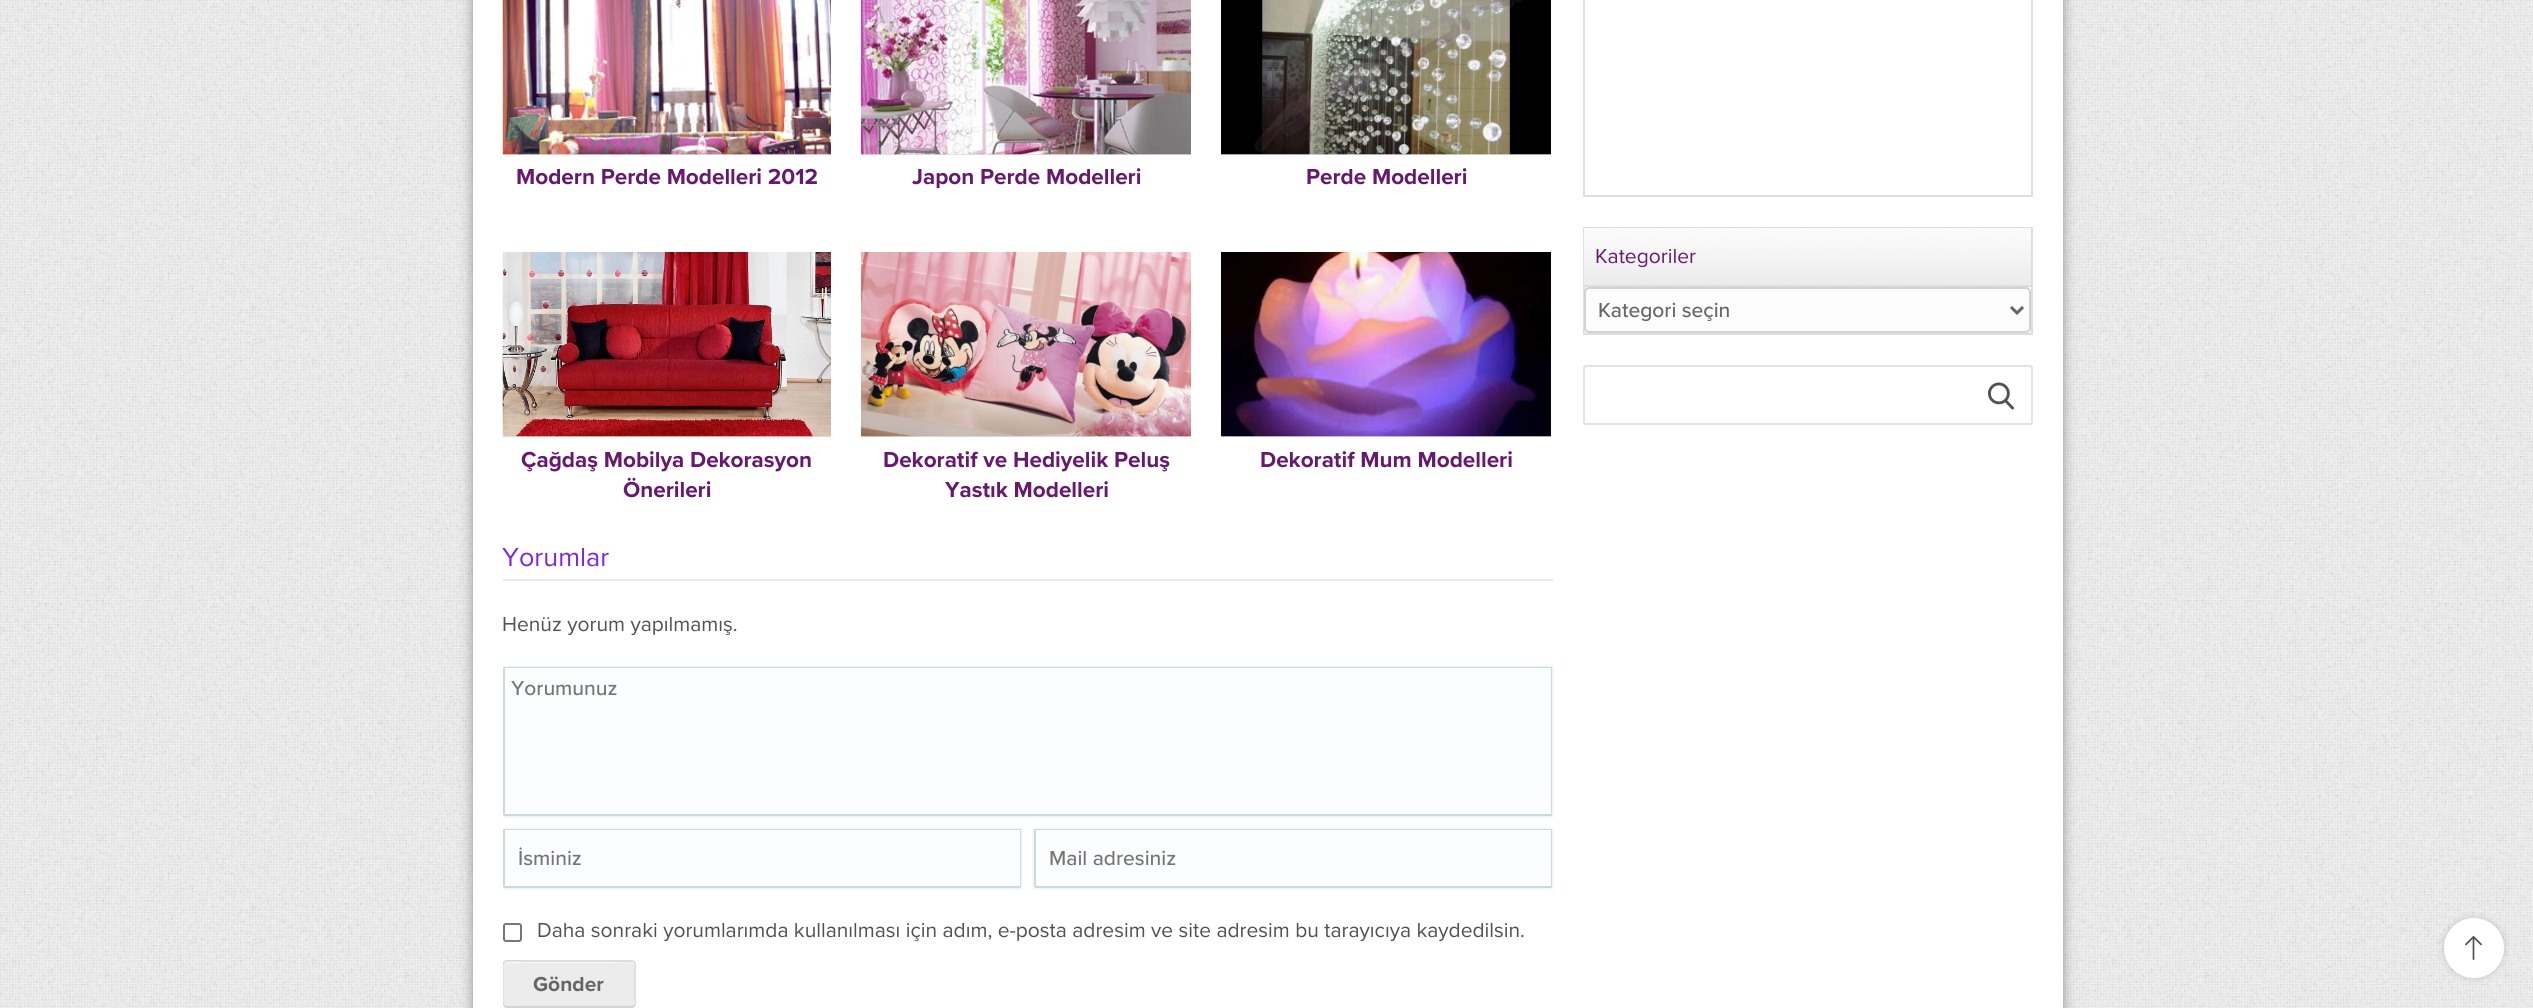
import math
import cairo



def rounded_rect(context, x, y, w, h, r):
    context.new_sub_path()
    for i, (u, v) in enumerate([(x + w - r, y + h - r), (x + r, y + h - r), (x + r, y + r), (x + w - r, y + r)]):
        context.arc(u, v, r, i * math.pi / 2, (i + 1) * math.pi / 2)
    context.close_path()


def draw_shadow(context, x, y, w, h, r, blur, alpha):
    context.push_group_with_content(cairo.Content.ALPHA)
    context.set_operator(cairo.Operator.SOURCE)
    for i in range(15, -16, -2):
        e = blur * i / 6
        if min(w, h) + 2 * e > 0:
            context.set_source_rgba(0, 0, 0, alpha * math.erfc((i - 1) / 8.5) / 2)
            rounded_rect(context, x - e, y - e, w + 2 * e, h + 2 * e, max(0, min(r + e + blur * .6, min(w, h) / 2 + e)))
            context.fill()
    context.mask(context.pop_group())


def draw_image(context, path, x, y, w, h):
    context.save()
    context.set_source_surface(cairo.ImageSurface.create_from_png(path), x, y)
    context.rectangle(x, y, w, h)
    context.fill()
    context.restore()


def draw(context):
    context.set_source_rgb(1, 1, 1)
    context.paint()
    draw_image(context, "images/1.png", 0, 0, 2533, 1008)
    context.set_source_rgb(102 / 255, 102 / 255, 102 / 255)
    draw_shadow(context, 491, -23, 1569, 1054, 0, 7.5, 1)
    draw_shadow(context, 476, -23, 1569, 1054, 0, 7.5, 1)
    context.set_source_rgb(1, 1, 1)
    context.rectangle(473, 0, 1590, 1008)
    context.fill()
    context.set_source_rgb(223 / 255, 223 / 255, 223 / 255)
    context.rectangle(503, 154, 328, 1)
    context.fill()
    draw_image(context, "images/2.png", 502, 0, 329, 155)
    context.rectangle(861, 154, 330, 1)
    context.fill()
    draw_image(context, "images/3.png", 861, 0, 330, 155)
    context.rectangle(1221, 154, 330, 1)
    context.fill()
    draw_image(context, "images/4.png", 1221, 0, 330, 155)
    context.rectangle(503, 436, 328, 1)
    context.fill()
    draw_image(context, "images/5.png", 502, 252, 329, 185)
    context.rectangle(861, 436, 330, 1)
    context.fill()
    draw_image(context, "images/6.png", 861, 252, 330, 185)
    context.rectangle(1221, 436, 330, 1)
    context.fill()
    draw_image(context, "images/7.png", 1221, 252, 330, 185)
    context.set_source_rgb(232 / 255, 232 / 255, 232 / 255)
    context.rectangle(503, 579, 1050, 2)
    context.fill()
    context.set_source_rgb(252 / 255, 253 / 255, 254 / 255)
    rounded_rect(context, 504, 667, 1048, 148, 0.5)
    context.fill_preserve()
    context.set_source_rgb(204 / 255, 218 / 255, 222 / 255)
    context.stroke()
    context.save()
    context.rectangle(503, 0, 1530, 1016)
    context.clip()
    rounded_rect(context, 502, 666, 1051, 151, 2)
    context.set_source_rgb(242 / 255, 247 / 255, 249 / 255)
    context.stroke()
    context.restore()
    context.set_source_rgb(252 / 255, 253 / 255, 254 / 255)
    rounded_rect(context, 504, 829, 517, 58, 0.5)
    context.fill_preserve()
    context.set_source_rgb(204 / 255, 218 / 255, 222 / 255)
    context.stroke()
    context.save()
    context.rectangle(503, 828, 1056, 72)
    context.clip()
    rounded_rect(context, 502, 828, 520, 61, 2)
    context.set_source_rgb(242 / 255, 247 / 255, 249 / 255)
    context.stroke()
    context.restore()
    context.set_source_rgb(252 / 255, 253 / 255, 254 / 255)
    rounded_rect(context, 1035, 829, 517, 58, 0.5)
    context.fill_preserve()
    context.set_source_rgb(204 / 255, 218 / 255, 222 / 255)
    context.stroke()
    context.save()
    context.rectangle(503, 828, 1056, 72)
    context.clip()
    rounded_rect(context, 1033, 828, 520, 61, 2)
    context.set_source_rgb(242 / 255, 247 / 255, 249 / 255)
    context.stroke()
    context.restore()
    rounded_rect(context, 504, 924, 17, 17, 2)
    context.set_source_rgb(118 / 255, 118 / 255, 118 / 255)
    context.stroke()
    context.set_source_rgb(236 / 255, 236 / 255, 236 / 255)
    rounded_rect(context, 503, 960, 133, 48, 5)
    context.fill()
    context.set_source_rgb(231 / 255, 231 / 255, 231 / 255)
    context.new_path()
    context.move_to(504, 1002)
    context.line_to(504, 1004)
    context.curve_to(504, 1006, 505, 1007, 507, 1007)
    context.line_to(632, 1007)
    context.curve_to(634, 1007, 635, 1006, 635, 1004)
    context.line_to(635, 965)
    context.curve_to(635, 964, 635, 963, 634, 963)
    context.line_to(634, 996)
    context.curve_to(634, 999, 635, 1005, 632, 1005)
    context.line_to(528, 1005)
    context.curve_to(523, 1005, 504, 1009, 504, 1002)
    context.close_path()
    context.fill()
    context.set_source_rgba(1, 1, 1, 0.69)
    context.new_path()
    context.move_to(507, 963)
    context.line_to(611, 963)
    context.curve_to(637, 963, 634, 957, 634, 979)
    context.line_to(634, 1006)
    context.curve_to(635, 1006, 635, 1005, 635, 1004)
    context.line_to(635, 965)
    context.curve_to(635, 963, 634, 962, 632, 962)
    context.line_to(507, 962)
    context.curve_to(505, 962, 504, 963, 504, 965)
    context.line_to(504, 966)
    context.curve_to(504, 964, 505, 963, 507, 963)
    context.close_path()
    context.fill()
    context.new_path()
    context.move_to(634, 1006)
    context.curve_to(633.5, 1007, 632.5, 1007, 631.5, 1007)
    context.line_to(507, 1007)
    context.curve_to(506, 1007, 505, 1007, 504.5, 1006)
    context.set_source_rgb(204 / 255, 204 / 255, 204 / 255)
    context.set_line_width(1.5)
    context.stroke()
    context.save()
    context.rectangle(503, 960, 1050, 48)
    context.clip()
    context.new_path()
    context.move_to(504.5, 1006)
    context.curve_to(502, 1004, 503, 999, 503, 997)
    context.line_to(503, 984)
    context.curve_to(503, 955.5, 498, 961, 528, 961)
    context.line_to(631.5, 961)
    context.curve_to(636.5, 961, 635, 968, 635, 971)
    context.line_to(635, 997)
    context.curve_to(635, 999, 636.5, 1004, 634, 1006)
    context.set_source_rgb(216 / 255, 216 / 255, 216 / 255)
    context.stroke()
    context.restore()
    context.rectangle(1584, -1, 448, 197)
    context.set_source_rgb(221 / 255, 221 / 255, 221 / 255)
    context.set_line_width(2)
    context.stroke()
    context.rectangle(1584, 228, 448, 106)
    context.stroke()
    draw_image(context, "images/8.png", 1584, 228, 447, 57)
    context.rectangle(1584, 285, 447, 2)
    context.fill()
    context.save()
    context.rectangle(1584, 228, 447, 105)
    context.clip()
    context.set_source_rgba(1, 1, 1, 0.58)
    context.new_path()
    context.move_to(1584, 328)
    context.line_to(1584, 330)
    context.curve_to(1584, 333, 1586, 335, 1589, 335)
    context.line_to(2026, 335)
    context.curve_to(2029, 335, 2031, 333, 2031, 330)
    context.line_to(2031, 328)
    context.curve_to(2031, 331, 2029, 333, 2026, 333)
    context.line_to(1588, 333)
    context.curve_to(1586, 333, 1584, 331, 1584, 328)
    context.close_path()
    context.fill()
    context.restore()
    context.set_source_rgb(252 / 255, 252 / 255, 252 / 255)
    rounded_rect(context, 1585, 288, 445, 44, 4)
    context.fill_preserve()
    context.set_source_rgb(210 / 255, 210 / 255, 210 / 255)
    context.stroke()
    context.new_path()
    context.move_to(2011, 307)
    context.line_to(2017, 313)
    context.line_to(2023, 307)
    context.set_source_rgb(102 / 255, 102 / 255, 102 / 255)
    context.set_line_width(3)
    context.stroke()
    rounded_rect(context, 1584, 366, 448, 58, 2)
    context.set_source_rgb(227 / 255, 227 / 255, 227 / 255)
    context.set_line_width(2)
    context.stroke()
    draw_image(context, "images/9.png", 1988, 382, 26, 28)
    context.set_source_rgb(0, 0, 0)
    draw_shadow(context, 2444, 918, 60, 60, 30, 4, 0.15)
    context.set_source_rgb(1, 1, 1)
    context.arc(2474, 948, 30, 0, 2 * math.pi)
    context.fill()
    draw_image(context, "images/10.png", 2465, 936, 17, 24)
    context.select_font_face("Proxima Nova", cairo.FontSlant.NORMAL, cairo.FontWeight.BOLD)
    context.set_font_size(22.5)
    context.set_source_rgb(102 / 255, 25 / 255, 110 / 255)
    context.move_to(516, 184)
    context.show_text("Modern Perde Modelleri 2012")
    context.move_to(912, 184)
    context.show_text("Japon Perde Modelleri")
    context.move_to(1306, 184)
    context.show_text("Perde Modelleri")
    context.move_to(521, 467)
    context.show_text("Çağdaş Mobilya Dekorasyon")
    context.move_to(623, 497)
    context.show_text("Önerileri")
    context.move_to(883, 467)
    context.show_text("Dekoratif ve Hediyelik Peluş")
    context.move_to(945, 497)
    context.show_text("Yastık Modelleri")
    context.move_to(1260, 467)
    context.show_text("Dekoratif Mum Modelleri")
    context.select_font_face("Proxima Nova")
    context.set_font_size(27)
    context.set_source_rgb(130 / 255, 36 / 255, 227 / 255)
    context.move_to(502, 566)
    context.show_text("Yorumlar")
    context.set_font_size(21)
    context.set_source_rgb(81 / 255, 81 / 255, 81 / 255)
    context.move_to(502, 631)
    context.show_text("Henüz yorum yapılmamış.")
    context.select_font_face("Proxima Nova Medium")
    context.set_source_rgb(117 / 255, 117 / 255, 117 / 255)
    context.move_to(511, 695)
    context.show_text("Yorumunuz")
    context.move_to(518, 865)
    context.show_text("İsminiz")
    context.move_to(1049, 865)
    context.show_text("Mail adresiniz")
    context.select_font_face("Proxima Nova")
    context.set_source_rgb(81 / 255, 81 / 255, 81 / 255)
    context.move_to(537, 937)
    context.show_text("Daha sonraki yorumlarımda kullanılması için adım, e-posta adresim ve site adresim bu tarayıcıya kaydedilsin.")
    context.select_font_face("Proxima Nova", cairo.FontSlant.NORMAL, cairo.FontWeight.BOLD)
    context.set_source_rgb(102 / 255, 102 / 255, 102 / 255)
    context.move_to(533, 991)
    context.show_text("Gönder")
    context.select_font_face("Proxima Nova")
    context.set_source_rgb(102 / 255, 25 / 255, 110 / 255)
    context.move_to(1595, 263)
    context.show_text("Kategoriler")
    context.select_font_face("Proxima Nova Medium")
    context.set_source_rgb(102 / 255, 102 / 255, 102 / 255)
    context.move_to(1598, 317)
    context.show_text("Kategori seçin")


surface = cairo.ImageSurface(cairo.Format.RGB24, 2533, 1008)
context = cairo.Context(surface)
options = cairo.FontOptions()
options.set_hint_metrics(cairo.HintMetrics.OFF)
options.set_hint_style(cairo.HintStyle.NONE)
context.set_font_options(options)
context.set_miter_limit(4)
draw(context)
surface.write_to_png("out.png")
